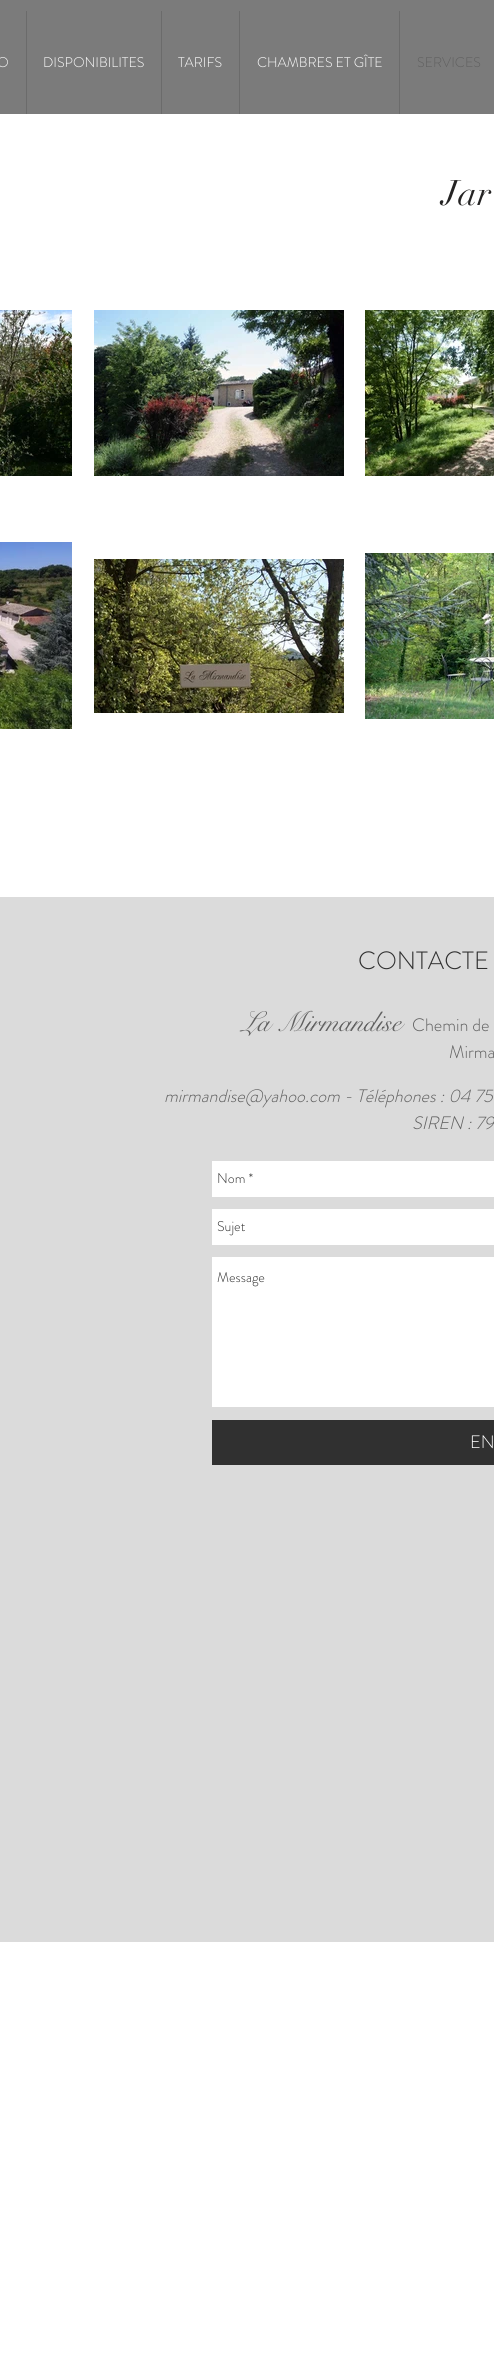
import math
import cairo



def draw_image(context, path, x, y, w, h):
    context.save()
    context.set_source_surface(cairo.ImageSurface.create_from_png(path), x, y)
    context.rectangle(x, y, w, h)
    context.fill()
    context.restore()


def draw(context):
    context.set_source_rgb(1, 1, 1)
    context.paint()
    context.set_source_rgb(123 / 255, 123 / 255, 123 / 255)
    context.rectangle(0, 0, 494, 114)
    context.fill()
    context.set_source_rgb(107 / 255, 107 / 255, 107 / 255)
    context.rectangle(26, 11, 1, 103)
    context.fill()
    context.rectangle(161, 11, 1, 103)
    context.fill()
    context.rectangle(239, 11, 1, 103)
    context.fill()
    context.rectangle(399, 11, 1, 103)
    context.fill()
    draw_image(context, "images/1.png", 0, 310, 72, 166)
    draw_image(context, "images/2.png", 94, 310, 250, 166)
    draw_image(context, "images/3.png", 365, 310, 129, 166)
    draw_image(context, "images/4.png", 0, 542, 72, 187)
    draw_image(context, "images/5.png", 94, 559, 250, 154)
    draw_image(context, "images/6.png", 365, 553, 129, 166)
    context.set_source_rgb(219 / 255, 219 / 255, 219 / 255)
    context.rectangle(0, 897, 494, 1045)
    context.fill()
    context.set_source_rgb(1, 1, 1)
    context.rectangle(212, 1161, 282, 36)
    context.fill()
    context.rectangle(212, 1209, 282, 36)
    context.fill()
    context.rectangle(212, 1257, 282, 150)
    context.fill()
    context.set_source_rgb(48 / 255, 48 / 255, 48 / 255)
    context.rectangle(212, 1420, 282, 45)
    context.fill()
    context.select_font_face("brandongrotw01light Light")
    context.set_font_size(14)
    context.set_source_rgb(1, 1, 1)
    context.move_to(-3, 67)
    context.show_text("O")
    context.move_to(43, 67)
    context.show_text("DISPONIBILITES")
    context.move_to(178, 67)
    context.show_text("TARIFS")
    context.move_to(257, 67)
    context.show_text("CHAMBRES ET GÎTE")
    context.set_source_rgb(96 / 255, 96 / 255, 96 / 255)
    context.move_to(417, 67)
    context.show_text("SERVICES")
    context.select_font_face("didot")
    context.set_font_size(35)
    context.set_source_rgb(36 / 255, 35 / 255, 35 / 255)
    context.move_to(442, 205)
    context.show_text("Jar")
    context.select_font_face("brandongrotw01light Light")
    context.set_font_size(25)
    context.set_source_rgb(48 / 255, 48 / 255, 48 / 255)
    context.move_to(358, 969)
    context.show_text("CONTACTE")
    context.select_font_face("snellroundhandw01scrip")
    context.set_font_size(28)
    context.set_source_rgb(96 / 255, 96 / 255, 96 / 255)
    context.move_to(242, 1031)
    context.show_text("La Mirmandise")
    context.select_font_face("brandongrotw01light Light")
    context.set_font_size(18)
    context.move_to(412, 1031)
    context.show_text("Chemin de")
    context.move_to(449, 1058)
    context.show_text("Mirma")
    context.select_font_face("brandongrotw01light Light", cairo.FontSlant.ITALIC)
    context.move_to(164, 1102)
    context.show_text("mirmandise@yahoo.com - Téléphones : 04 75")
    context.move_to(412, 1129)
    context.show_text("SIREN : 79")
    context.select_font_face("brandongrotw01light Light")
    context.set_font_size(14)
    context.set_source_rgb(48 / 255, 48 / 255, 48 / 255)
    context.move_to(217, 1183)
    context.show_text("Nom *")
    context.move_to(217, 1231)
    context.show_text("Sujet")
    context.move_to(217, 1282)
    context.show_text("Message")
    context.set_font_size(18)
    context.set_source_rgb(1, 1, 1)
    context.move_to(470, 1448)
    context.show_text("EN")


surface = cairo.ImageSurface(cairo.Format.RGB24, 494, 2364)
context = cairo.Context(surface)
options = cairo.FontOptions()
options.set_hint_metrics(cairo.HintMetrics.OFF)
options.set_hint_style(cairo.HintStyle.NONE)
context.set_font_options(options)
context.set_miter_limit(4)
draw(context)
surface.write_to_png("out.png")
